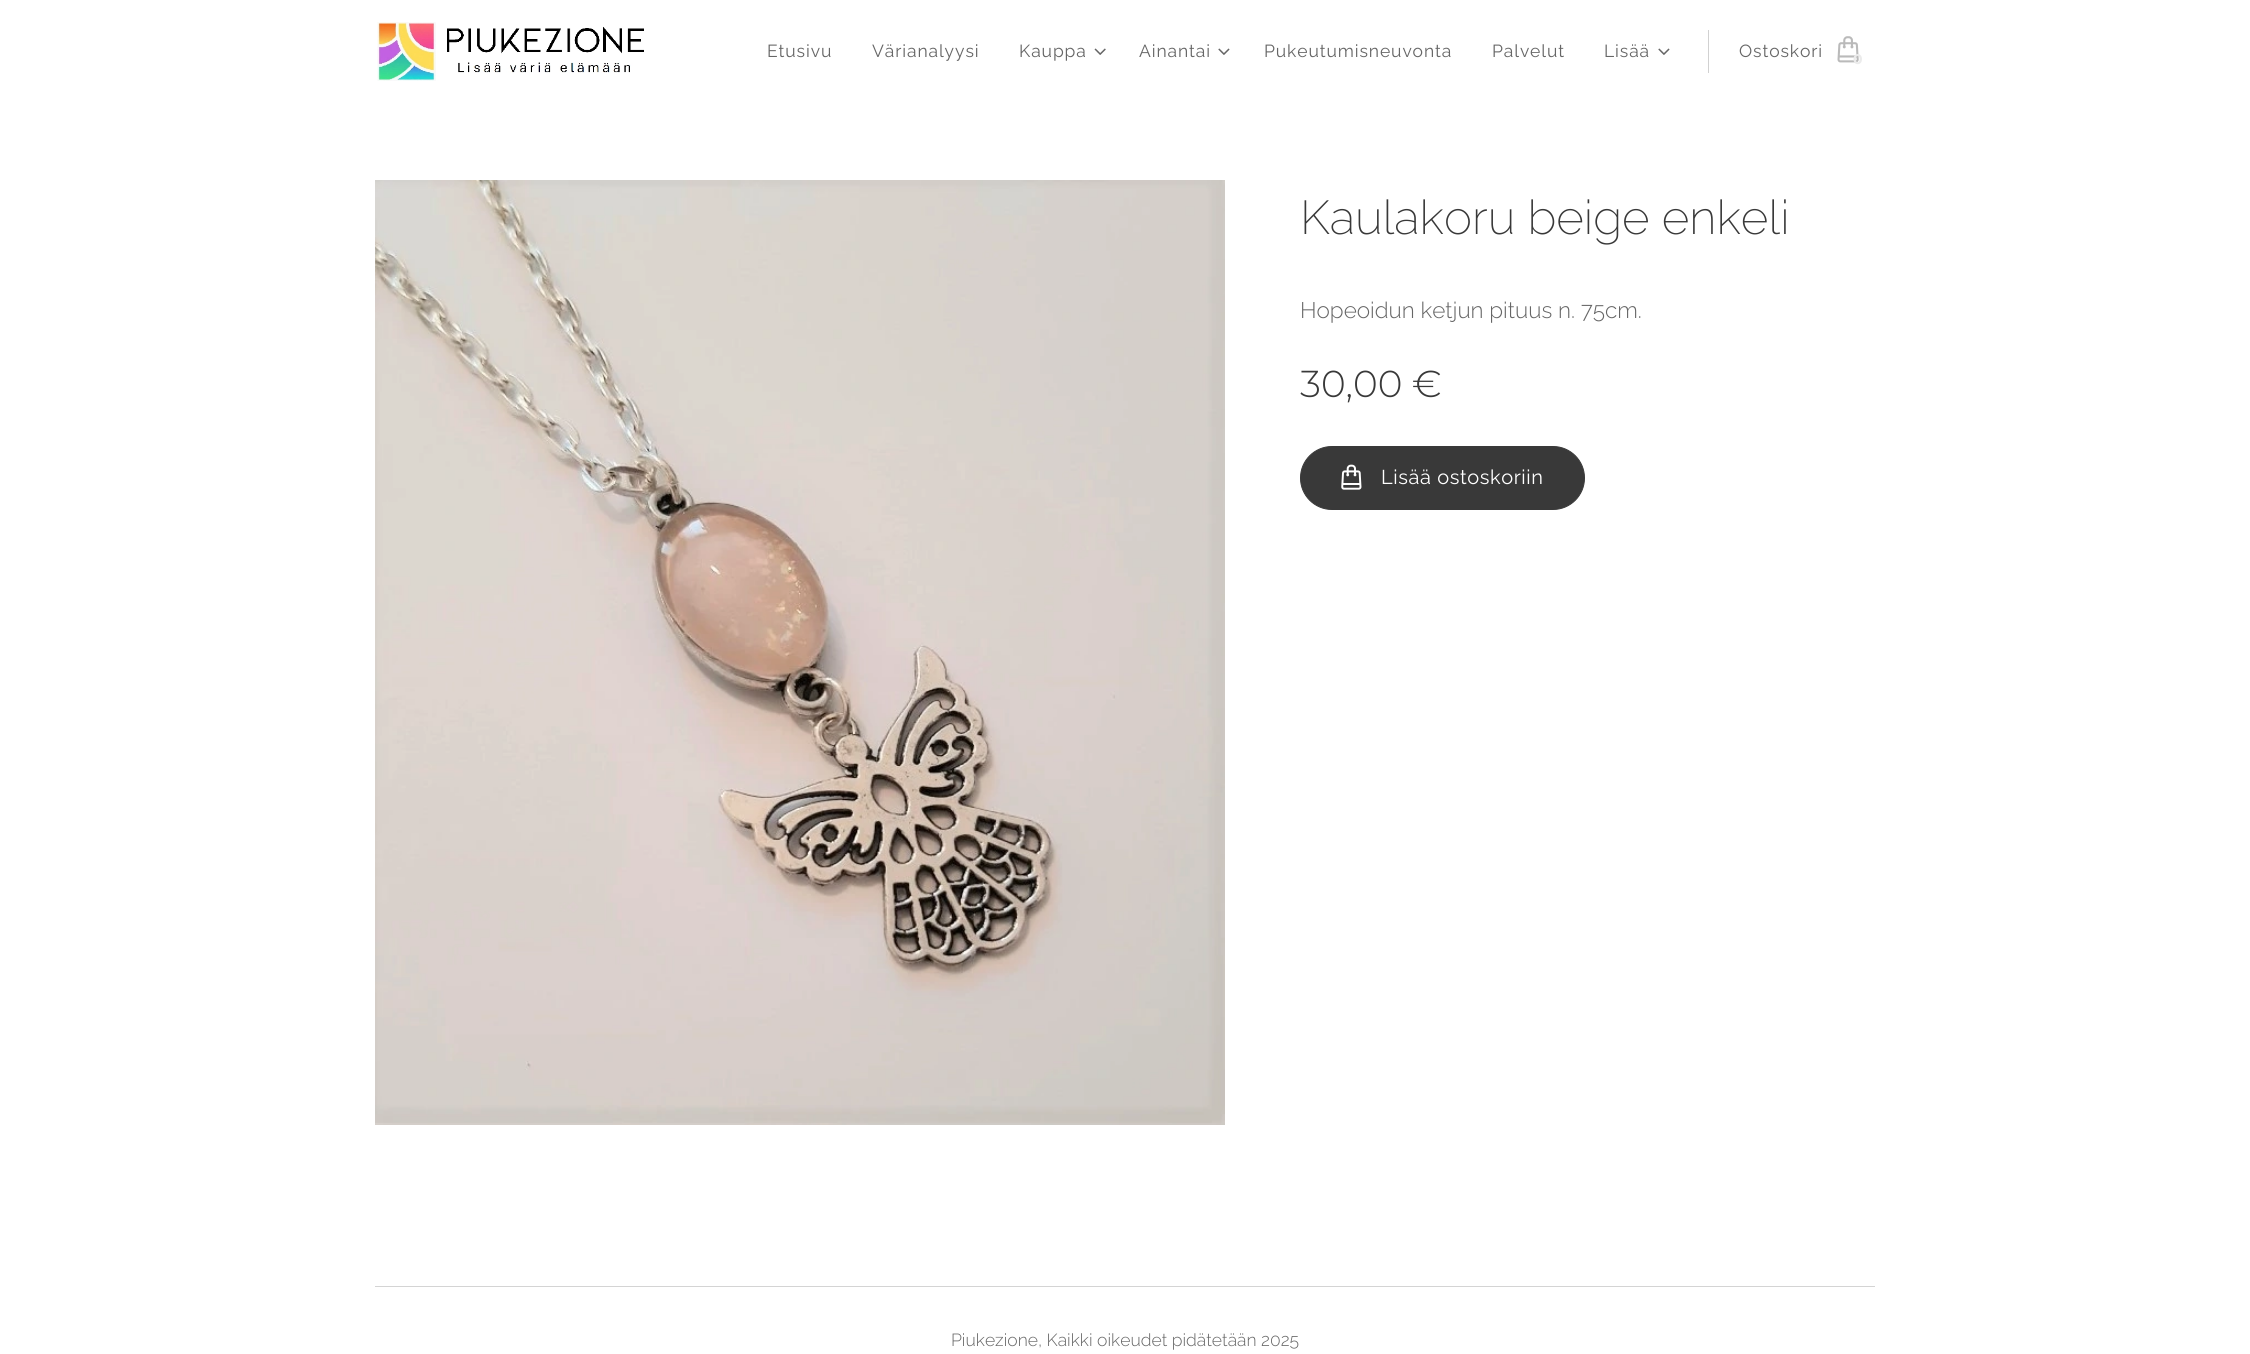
import math
import cairo



def draw_spaced(context, x, y, s, letter, word):
    context.move_to(x, y)
    for ch in s:
        context.show_text(ch)
        context.rel_move_to(letter + word * (ch == ' '), 0)


def rounded_rect(context, x, y, w, h, r):
    context.new_sub_path()
    for i, (u, v) in enumerate([(x + w - r, y + h - r), (x + r, y + h - r), (x + r, y + r), (x + w - r, y + r)]):
        context.arc(u, v, r, i * math.pi / 2, (i + 1) * math.pi / 2)
    context.close_path()


def draw_image(context, path, x, y, w, h):
    context.save()
    context.set_source_surface(cairo.ImageSurface.create_from_png(path), x, y)
    context.rectangle(x, y, w, h)
    context.fill()
    context.restore()


def draw(context):
    context.set_source_rgb(1, 1, 1)
    context.paint()
    draw_image(context, "images/1.png", 377, 22, 267, 59)
    draw_image(context, "images/2.png", 1094, 48, 12, 7)
    draw_image(context, "images/3.png", 1218, 48, 12, 7)
    draw_image(context, "images/3.png", 1658, 48, 12, 7)
    context.set_source_rgb(209 / 255, 209 / 255, 209 / 255)
    context.rectangle(1708, 30, 1, 43)
    context.fill()
    draw_image(context, "images/4.png", 1837, 36, 22, 27)
    draw_image(context, "images/5.png", 375, 180, 850, 945)
    context.set_source_rgb(57 / 255, 57 / 255, 57 / 255)
    rounded_rect(context, 1300.5, 446.5, 284, 63, 31.5)
    context.fill_preserve()
    context.set_line_width(1)
    context.stroke()
    draw_image(context, "images/6.png", 1341, 464, 21, 26)
    context.set_source_rgb(212 / 255, 212 / 255, 212 / 255)
    context.rectangle(375, 1286, 1500, 1)
    context.fill()
    context.select_font_face("Raleway")
    context.set_font_size(17.5)
    context.set_source_rgb(102 / 255, 102 / 255, 102 / 255)
    draw_spaced(context, 767, 57, "Etusivu", 0.9, 0)
    draw_spaced(context, 872, 57, "Värianalyysi", 0.9, 0)
    draw_spaced(context, 1019, 57, "Kauppa", 0.9, 0)
    draw_spaced(context, 1139, 57, "Ainantai", 0.9, 0)
    draw_spaced(context, 1264, 57, "Pukeutumisneuvonta", 0.9, 0)
    draw_spaced(context, 1492, 57, "Palvelut", 0.9, 0)
    draw_spaced(context, 1604, 57, "Lisää", 0.9, 0)
    draw_spaced(context, 1739, 57, "Ostoskori", 0.9, 0)
    context.select_font_face("Montserrat", cairo.FontSlant.NORMAL, cairo.FontWeight.BOLD)
    context.set_font_size(14)
    context.set_source_rgb(235 / 255, 235 / 255, 235 / 255)
    context.move_to(1853, 64)
    context.show_text("0")
    context.select_font_face("Raleway ExtraLight")
    context.set_font_size(47.5)
    context.set_source_rgb(57 / 255, 57 / 255, 57 / 255)
    context.move_to(1300, 234)
    context.show_text("Kaulakoru beige enkeli")
    context.select_font_face("Raleway Light")
    context.set_font_size(22.5)
    context.set_source_rgb(102 / 255, 102 / 255, 102 / 255)
    context.move_to(1300, 318)
    context.show_text("Hopeoidun ketjun pituus n. 75cm.")
    context.select_font_face("Montserrat Light")
    context.set_font_size(37.5)
    context.set_source_rgb(57 / 255, 57 / 255, 57 / 255)
    context.move_to(1300, 397)
    context.show_text("30,00 €")
    context.select_font_face("Raleway")
    context.set_font_size(20)
    context.set_source_rgb(1, 1, 1)
    draw_spaced(context, 1381, 484, "Lisää ostoskoriin", 0.6, 0)
    context.select_font_face("Raleway Light")
    context.set_font_size(17.5)
    context.set_source_rgb(102 / 255, 102 / 255, 102 / 255)
    context.move_to(951, 1346)
    context.show_text("Piukezione, Kaikki oikeudet pidätetään 2025")


surface = cairo.ImageSurface(cairo.Format.RGB24, 2250, 1354)
context = cairo.Context(surface)
options = cairo.FontOptions()
options.set_hint_metrics(cairo.HintMetrics.OFF)
options.set_hint_style(cairo.HintStyle.NONE)
context.set_font_options(options)
context.set_miter_limit(4)
draw(context)
surface.write_to_png("out.png")
